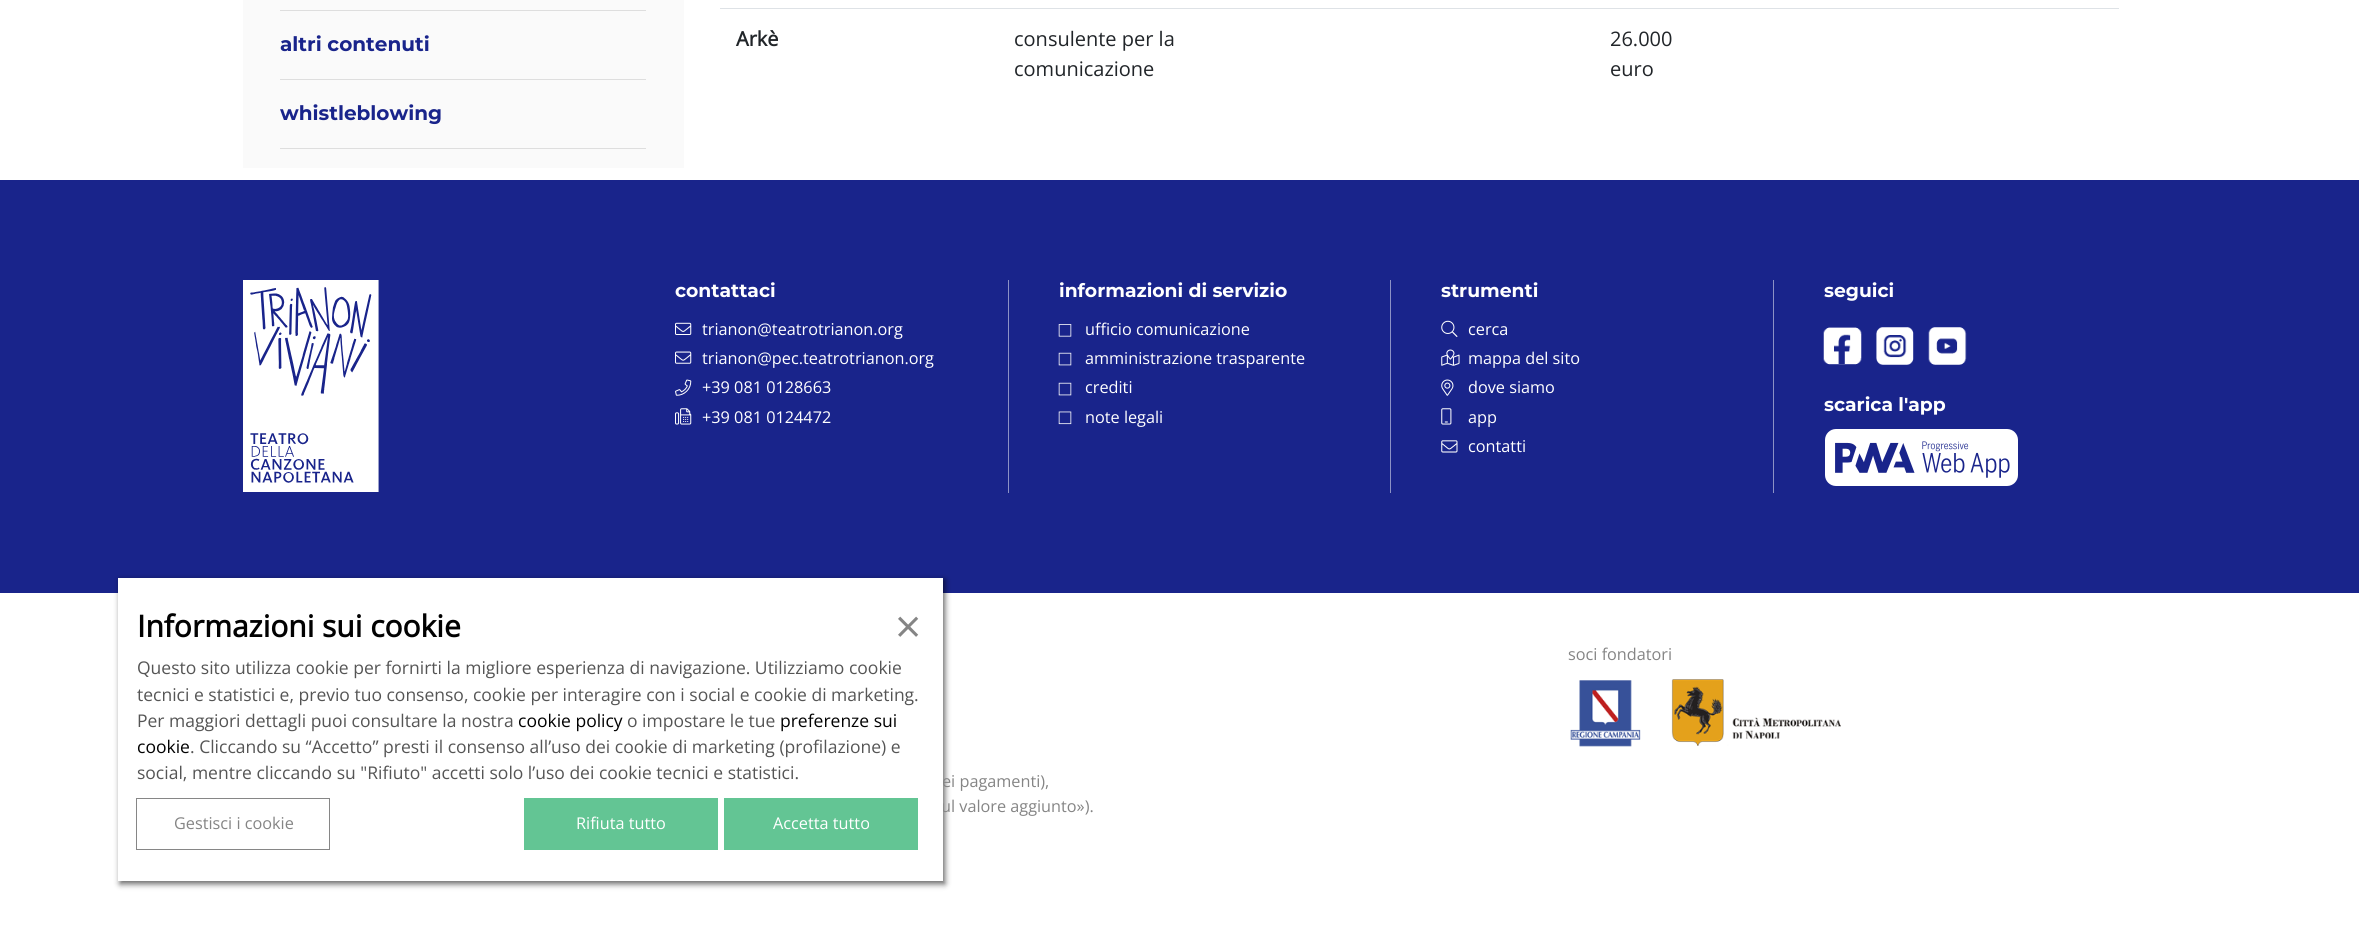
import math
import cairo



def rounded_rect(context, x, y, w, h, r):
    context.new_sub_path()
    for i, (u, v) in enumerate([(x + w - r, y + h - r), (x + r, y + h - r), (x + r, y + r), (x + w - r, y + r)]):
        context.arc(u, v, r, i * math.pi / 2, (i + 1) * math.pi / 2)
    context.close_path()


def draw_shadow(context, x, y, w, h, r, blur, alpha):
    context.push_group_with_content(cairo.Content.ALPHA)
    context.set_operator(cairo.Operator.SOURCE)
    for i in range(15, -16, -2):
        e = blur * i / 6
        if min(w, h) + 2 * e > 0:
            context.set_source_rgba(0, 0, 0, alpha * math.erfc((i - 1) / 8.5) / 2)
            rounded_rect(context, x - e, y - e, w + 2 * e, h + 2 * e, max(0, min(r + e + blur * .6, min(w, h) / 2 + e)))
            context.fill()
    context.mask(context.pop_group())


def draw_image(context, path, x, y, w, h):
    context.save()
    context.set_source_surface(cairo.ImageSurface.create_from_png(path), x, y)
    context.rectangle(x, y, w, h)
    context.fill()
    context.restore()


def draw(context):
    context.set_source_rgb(1, 1, 1)
    context.paint()
    context.set_source_rgb(250 / 255, 250 / 255, 250 / 255)
    context.rectangle(243, 0, 441, 168)
    context.fill()
    context.set_source_rgb(222 / 255, 222 / 255, 222 / 255)
    context.rectangle(280, 10, 366, 1)
    context.fill()
    context.rectangle(280, 79, 366, 1)
    context.fill()
    context.rectangle(280, 148, 366, 1)
    context.fill()
    context.set_source_rgb(222 / 255, 226 / 255, 230 / 255)
    context.rectangle(720, 8, 1399, 1)
    context.fill()
    context.set_source_rgb(25 / 255, 36 / 255, 139 / 255)
    context.rectangle(0, 180, 2359, 413)
    context.fill()
    draw_image(context, "images/1.png", 243, 280, 136, 212)
    draw_image(context, "images/2.png", 675, 322, 17, 13)
    draw_image(context, "images/3.png", 675, 351, 17, 13)
    draw_image(context, "images/4.png", 675, 379, 17, 17)
    draw_image(context, "images/5.png", 675, 408, 17, 17)
    context.set_source_rgb(140 / 255, 146 / 255, 197 / 255)
    context.rectangle(1008, 280, 1, 213)
    context.fill()
    draw_image(context, "images/6.png", 1058, 324, 14, 13)
    draw_image(context, "images/7.png", 1058, 352, 14, 14)
    draw_image(context, "images/7.png", 1058, 382, 14, 14)
    draw_image(context, "images/8.png", 1058, 411, 14, 14)
    context.rectangle(1390, 280, 1, 213)
    context.fill()
    draw_image(context, "images/9.png", 1441, 320, 17, 17)
    draw_image(context, "images/10.png", 1441, 349, 19, 17)
    draw_image(context, "images/11.png", 1441, 379, 13, 17)
    draw_image(context, "images/12.png", 1441, 408, 11, 17)
    draw_image(context, "images/13.png", 1441, 440, 17, 13)
    context.rectangle(1773, 280, 1, 213)
    context.fill()
    draw_image(context, "images/14.png", 1823, 327, 39, 38)
    draw_image(context, "images/15.png", 1876, 327, 38, 38)
    draw_image(context, "images/16.png", 1928, 327, 39, 38)
    draw_image(context, "images/17.png", 1825, 429, 193, 57)
    context.set_source_rgb(0, 0, 0)
    draw_shadow(context, 120, 580, 825, 304, 0, 3, 0.6)
    draw_image(context, "images/18.png", 1570, 679, 271, 68)
    context.select_font_face("Montserrat", cairo.FontSlant.NORMAL, cairo.FontWeight.BOLD)
    context.set_font_size(20)
    context.set_source_rgb(25 / 255, 36 / 255, 139 / 255)
    context.move_to(280, 51)
    context.show_text("altri contenuti")
    context.move_to(280, 120)
    context.show_text("whistleblowing")
    context.select_font_face("Open Sans", cairo.FontSlant.NORMAL, cairo.FontWeight.BOLD)
    context.set_source_rgb(33 / 255, 37 / 255, 41 / 255)
    context.move_to(736, 46)
    context.show_text("Arkè")
    context.select_font_face("Open Sans")
    context.move_to(1014, 46)
    context.show_text("consulente per la")
    context.move_to(1014, 76)
    context.show_text("comunicazione")
    context.move_to(1610, 46)
    context.show_text("26.000")
    context.move_to(1610, 76)
    context.show_text("euro")
    context.select_font_face("Montserrat", cairo.FontSlant.NORMAL, cairo.FontWeight.BOLD)
    context.set_font_size(18.75)
    context.set_source_rgb(1, 1, 1)
    context.move_to(675, 297)
    context.show_text("contattaci")
    context.select_font_face("Open Sans")
    context.set_font_size(16.25)
    context.move_to(702, 335)
    context.show_text("trianon@teatrotrianon.org")
    context.move_to(702, 364)
    context.show_text("trianon@pec.teatrotrianon.org")
    context.move_to(702, 393)
    context.show_text("+39 081 0128663")
    context.move_to(702, 423)
    context.show_text("+39 081 0124472")
    context.select_font_face("Montserrat", cairo.FontSlant.NORMAL, cairo.FontWeight.BOLD)
    context.set_font_size(18.75)
    context.move_to(1059, 297)
    context.show_text("informazioni di servizio")
    context.select_font_face("Open Sans")
    context.set_font_size(16.25)
    context.move_to(1085, 335)
    context.show_text("ufficio comunicazione")
    context.move_to(1085, 364)
    context.show_text("amministrazione trasparente")
    context.move_to(1085, 393)
    context.show_text("crediti")
    context.move_to(1085, 423)
    context.show_text("note legali")
    context.select_font_face("Montserrat", cairo.FontSlant.NORMAL, cairo.FontWeight.BOLD)
    context.set_font_size(18.75)
    context.move_to(1441, 297)
    context.show_text("strumenti")
    context.select_font_face("Open Sans")
    context.set_font_size(16.25)
    context.move_to(1468, 335)
    context.show_text("cerca")
    context.move_to(1468, 364)
    context.show_text("mappa del sito")
    context.move_to(1468, 393)
    context.show_text("dove siamo")
    context.move_to(1468, 423)
    context.show_text("app")
    context.move_to(1468, 452)
    context.show_text("contatti")
    context.select_font_face("Montserrat", cairo.FontSlant.NORMAL, cairo.FontWeight.BOLD)
    context.set_font_size(18.75)
    context.move_to(1824, 297)
    context.show_text("seguici")
    context.move_to(1824, 411)
    context.show_text("scarica l'app")
    context.select_font_face("Open Sans")
    context.set_font_size(16.25)
    context.set_source_rgb(133 / 255, 133 / 255, 133 / 255)
    context.move_to(1568, 660)
    context.show_text("soci fondatori")
    context.move_to(942, 787)
    context.show_text("ei pagamenti),")
    context.move_to(941, 812)
    context.show_text("ul valore aggiunto»).")
    context.set_source_rgb(1, 1, 1)
    context.rectangle(118, 578, 825, 303)
    context.fill()
    context.set_font_size(46)
    context.set_source_rgb(133 / 255, 133 / 255, 133 / 255)
    context.move_to(895, 643)
    context.show_text("×")
    context.select_font_face("Open Sans", cairo.FontSlant.NORMAL, cairo.FontWeight.BOLD)
    context.set_font_size(30)
    context.set_source_rgb(1 / 255, 1 / 255, 1 / 255)
    context.move_to(137, 637)
    context.show_text("Informazioni sui cookie")
    context.rectangle(136.5, 798.5, 193, 51)
    context.set_source_rgb(134 / 255, 134 / 255, 134 / 255)
    context.set_line_width(1)
    context.stroke()
    context.select_font_face("Open Sans")
    context.set_font_size(16.25)
    context.set_source_rgb(133 / 255, 133 / 255, 133 / 255)
    context.move_to(174, 829)
    context.show_text("Gestisci i cookie")
    context.set_font_size(17.5)
    context.set_source_rgb(85 / 255, 85 / 255, 85 / 255)
    context.move_to(137, 779)
    context.show_text("social, mentre cliccando su \"Rifiuto\" accetti solo l’uso dei cookie tecnici e statistici.")
    context.move_to(190, 753)
    context.show_text(". Cliccando su “Accetto” presti il consenso all’uso dei cookie di marketing (profilazione) e")
    context.set_source_rgb(1 / 255, 1 / 255, 1 / 255)
    context.move_to(137, 753)
    context.show_text("cookie")
    context.move_to(780, 727)
    context.show_text("preferenze sui")
    context.set_source_rgb(85 / 255, 85 / 255, 85 / 255)
    context.move_to(627, 727)
    context.show_text("o impostare le tue")
    context.set_source_rgb(1 / 255, 1 / 255, 1 / 255)
    context.move_to(518, 727)
    context.show_text("cookie policy")
    context.set_source_rgb(85 / 255, 85 / 255, 85 / 255)
    context.move_to(137, 727)
    context.show_text("Per maggiori dettagli puoi consultare la nostra")
    context.move_to(137, 701)
    context.show_text("tecnici e statistici e, previo tuo consenso, cookie per interagire con i social e cookie di marketing.")
    context.move_to(137, 674)
    context.show_text("Questo sito utilizza cookie per fornirti la migliore esperienza di navigazione. Utilizziamo cookie")
    context.set_source_rgb(99 / 255, 197 / 255, 148 / 255)
    context.rectangle(524, 798, 194, 52)
    context.fill()
    context.set_font_size(16.25)
    context.set_source_rgb(1, 1, 1)
    context.move_to(576, 829)
    context.show_text("Rifiuta tutto")
    context.set_source_rgb(99 / 255, 197 / 255, 148 / 255)
    context.rectangle(724, 798, 194, 52)
    context.fill()
    context.set_source_rgb(1, 1, 1)
    context.move_to(773, 829)
    context.show_text("Accetta tutto")


surface = cairo.ImageSurface(cairo.Format.RGB24, 2359, 927)
context = cairo.Context(surface)
options = cairo.FontOptions()
options.set_hint_metrics(cairo.HintMetrics.OFF)
options.set_hint_style(cairo.HintStyle.NONE)
context.set_font_options(options)
context.set_miter_limit(4)
draw(context)
surface.write_to_png("out.png")
